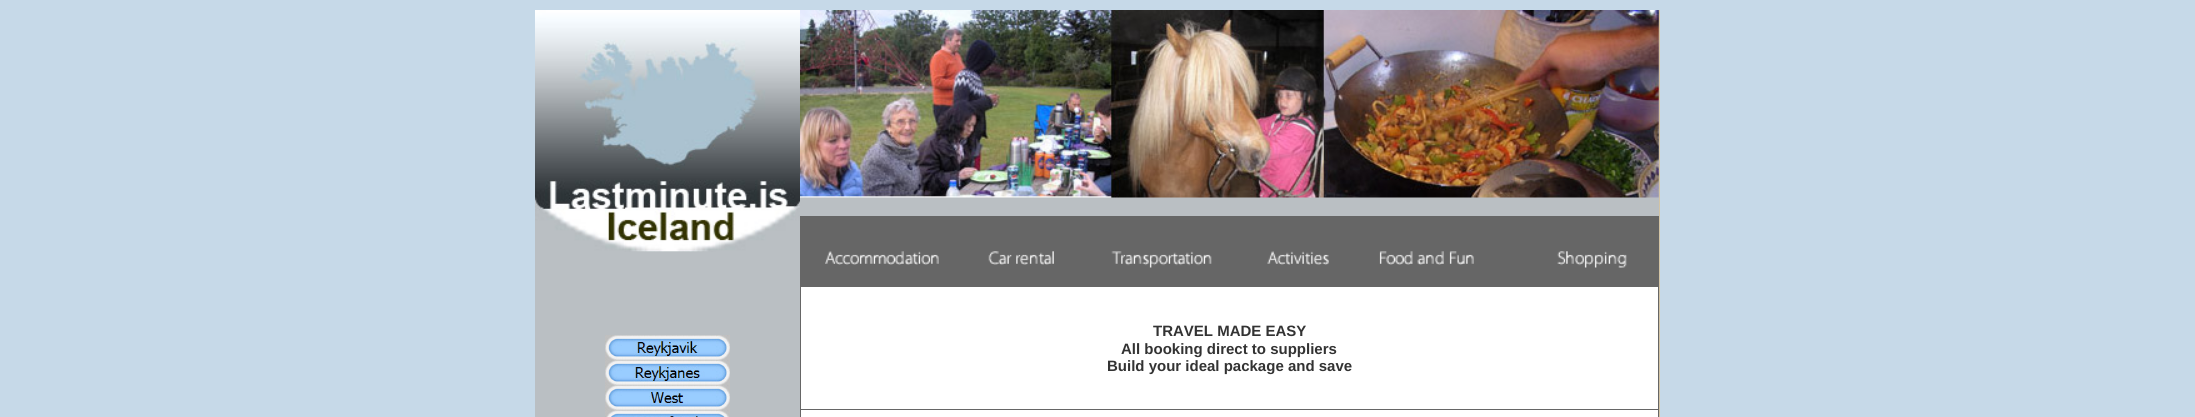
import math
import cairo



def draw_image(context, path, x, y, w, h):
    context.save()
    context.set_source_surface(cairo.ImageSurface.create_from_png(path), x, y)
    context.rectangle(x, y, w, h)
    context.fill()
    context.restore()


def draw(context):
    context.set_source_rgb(198 / 255, 217 / 255, 232 / 255)
    context.paint()
    context.set_source_rgb(211 / 255, 196 / 255, 165 / 255)
    context.rectangle(1659, 10, 1, 407)
    context.fill()
    context.set_source_rgb(186 / 255, 191 / 255, 195 / 255)
    context.rectangle(535, 252, 265, 165)
    context.fill()
    draw_image(context, "images/1.png", 535, 10, 265, 242)
    context.rectangle(800, 10, 859, 206)
    context.fill()
    draw_image(context, "images/2.png", 800, 10, 859, 188)
    context.set_source_rgb(102 / 255, 102 / 255, 102 / 255)
    context.rectangle(800, 216, 859, 71)
    context.fill()
    draw_image(context, "images/3.png", 825, 251, 114, 14)
    draw_image(context, "images/4.png", 988, 251, 66, 14)
    draw_image(context, "images/5.png", 1111, 251, 101, 17)
    draw_image(context, "images/6.png", 1267, 251, 62, 14)
    draw_image(context, "images/7.png", 1379, 251, 95, 14)
    draw_image(context, "images/8.png", 1557, 251, 70, 17)
    draw_image(context, "images/9.png", 605, 335, 125, 25)
    draw_image(context, "images/10.png", 605, 360, 125, 25)
    draw_image(context, "images/11.png", 605, 385, 125, 25)
    draw_image(context, "images/12.png", 605, 410, 125, 7)
    context.set_source_rgb(1, 1, 1)
    context.rectangle(801, 287, 857, 130)
    context.fill()
    context.set_source_rgb(102 / 255, 102 / 255, 102 / 255)
    context.rectangle(1658, 286, 1, 131)
    context.fill()
    context.rectangle(800, 286, 1, 131)
    context.fill()
    context.rectangle(800, 409, 859, 1)
    context.fill()
    context.select_font_face("Liberation Sans", cairo.FontSlant.NORMAL, cairo.FontWeight.BOLD)
    context.set_font_size(15)
    context.set_source_rgb(51 / 255, 51 / 255, 51 / 255)
    context.move_to(1153, 336)
    context.show_text("TRAVEL MADE EASY")
    context.move_to(1121, 354)
    context.show_text("All booking direct to suppliers")
    context.move_to(1107, 371)
    context.show_text("Build your ideal package and save")


surface = cairo.ImageSurface(cairo.Format.RGB24, 2195, 417)
context = cairo.Context(surface)
options = cairo.FontOptions()
options.set_hint_metrics(cairo.HintMetrics.OFF)
options.set_hint_style(cairo.HintStyle.NONE)
context.set_font_options(options)
context.set_miter_limit(4)
draw(context)
surface.write_to_png("out.png")
